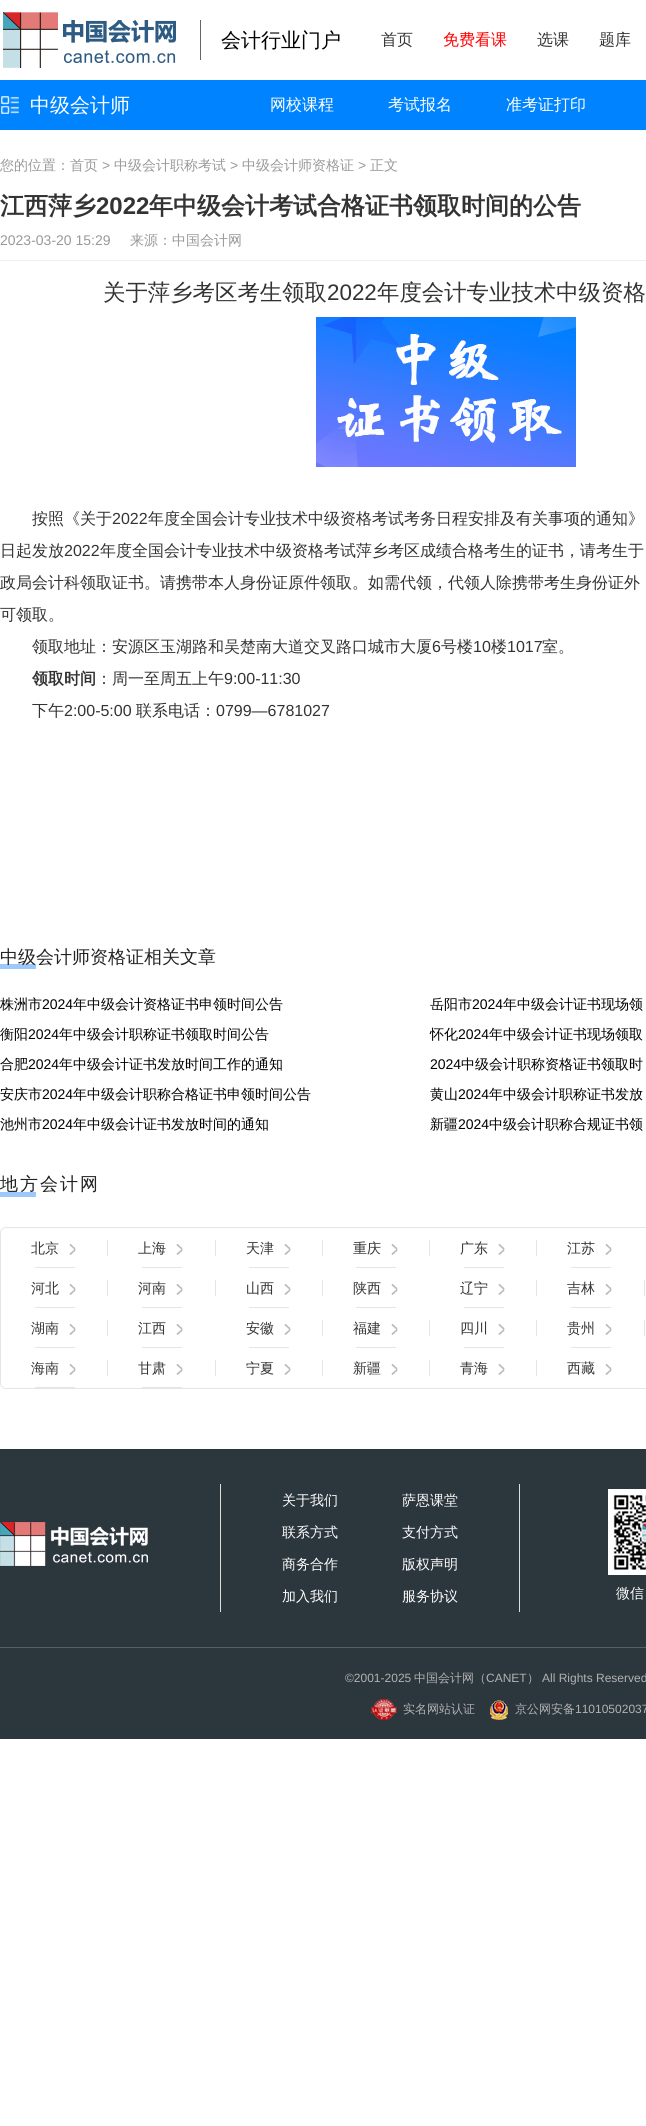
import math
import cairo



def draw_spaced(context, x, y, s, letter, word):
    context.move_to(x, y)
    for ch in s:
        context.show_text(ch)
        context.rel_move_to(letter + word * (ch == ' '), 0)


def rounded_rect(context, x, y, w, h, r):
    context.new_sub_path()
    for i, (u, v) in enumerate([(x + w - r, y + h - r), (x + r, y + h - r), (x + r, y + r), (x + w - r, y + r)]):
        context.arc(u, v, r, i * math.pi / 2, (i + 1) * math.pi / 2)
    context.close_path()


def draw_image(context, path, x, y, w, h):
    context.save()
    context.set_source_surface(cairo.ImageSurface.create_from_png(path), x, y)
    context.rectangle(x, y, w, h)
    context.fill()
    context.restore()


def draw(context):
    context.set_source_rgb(1, 1, 1)
    context.paint()
    draw_image(context, "images/1.png", 3, 12, 173, 56)
    context.set_source_rgb(102 / 255, 102 / 255, 102 / 255)
    context.rectangle(200, 20, 1, 40)
    context.fill()
    context.set_source_rgb(0, 131 / 255, 1)
    context.rectangle(0, 80, 646, 50)
    context.fill()
    draw_image(context, "images/2.png", 1, 96, 18, 18)
    context.set_source_rgb(238 / 255, 238 / 255, 238 / 255)
    context.rectangle(0, 260, 646, 1)
    context.fill()
    draw_image(context, "images/3.png", 316, 317, 260, 150)
    context.set_source_rgb(157 / 255, 200 / 255, 252 / 255)
    context.rectangle(0, 964, 36, 5)
    context.fill()
    context.rectangle(0, 1192, 36, 5)
    context.fill()
    rounded_rect(context, 0.5, 1227.5, 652, 161, 5.5)
    context.set_source_rgb(229 / 255, 229 / 255, 229 / 255)
    context.set_line_width(1)
    context.stroke()
    draw_image(context, "images/4.png", 69, 1244, 7, 11)
    context.rectangle(107, 1240, 1, 16)
    context.fill()
    context.rectangle(35, 1267, 40, 1)
    context.fill()
    draw_image(context, "images/4.png", 176, 1244, 7, 11)
    context.rectangle(215, 1240, 1, 16)
    context.fill()
    context.rectangle(142, 1267, 40, 1)
    context.fill()
    draw_image(context, "images/5.png", 284, 1244, 7, 11)
    context.rectangle(322, 1240, 1, 16)
    context.fill()
    context.rectangle(249, 1267, 40, 1)
    context.fill()
    draw_image(context, "images/4.png", 391, 1244, 7, 11)
    context.rectangle(429, 1240, 1, 16)
    context.fill()
    context.rectangle(356, 1267, 40, 1)
    context.fill()
    draw_image(context, "images/4.png", 498, 1244, 7, 11)
    context.rectangle(536, 1240, 1, 16)
    context.fill()
    context.rectangle(464, 1267, 40, 1)
    context.fill()
    draw_image(context, "images/4.png", 605, 1244, 7, 11)
    context.rectangle(571, 1267, 40, 1)
    context.fill()
    draw_image(context, "images/4.png", 69, 1284, 7, 11)
    context.rectangle(107, 1280, 1, 16)
    context.fill()
    context.rectangle(35, 1307, 40, 1)
    context.fill()
    draw_image(context, "images/4.png", 176, 1284, 7, 11)
    context.rectangle(215, 1280, 1, 16)
    context.fill()
    context.rectangle(142, 1307, 40, 1)
    context.fill()
    draw_image(context, "images/5.png", 284, 1284, 7, 11)
    context.rectangle(322, 1280, 1, 16)
    context.fill()
    context.rectangle(249, 1307, 40, 1)
    context.fill()
    draw_image(context, "images/4.png", 391, 1284, 7, 11)
    context.rectangle(356, 1307, 40, 1)
    context.fill()
    draw_image(context, "images/4.png", 498, 1284, 7, 11)
    context.rectangle(536, 1280, 1, 16)
    context.fill()
    context.rectangle(464, 1307, 40, 1)
    context.fill()
    draw_image(context, "images/4.png", 605, 1284, 7, 11)
    context.rectangle(644, 1280, 1, 16)
    context.fill()
    context.rectangle(571, 1307, 40, 1)
    context.fill()
    draw_image(context, "images/4.png", 69, 1324, 7, 11)
    context.rectangle(107, 1320, 1, 16)
    context.fill()
    context.rectangle(35, 1347, 40, 1)
    context.fill()
    draw_image(context, "images/4.png", 176, 1324, 7, 11)
    context.rectangle(142, 1347, 40, 1)
    context.fill()
    draw_image(context, "images/5.png", 284, 1324, 7, 11)
    context.rectangle(322, 1320, 1, 16)
    context.fill()
    context.rectangle(249, 1347, 40, 1)
    context.fill()
    draw_image(context, "images/4.png", 391, 1324, 7, 11)
    context.rectangle(429, 1320, 1, 16)
    context.fill()
    context.rectangle(356, 1347, 40, 1)
    context.fill()
    draw_image(context, "images/4.png", 498, 1324, 7, 11)
    context.rectangle(536, 1320, 1, 16)
    context.fill()
    context.rectangle(464, 1347, 40, 1)
    context.fill()
    draw_image(context, "images/4.png", 605, 1324, 7, 11)
    context.rectangle(644, 1320, 1, 16)
    context.fill()
    context.rectangle(571, 1347, 40, 1)
    context.fill()
    draw_image(context, "images/4.png", 69, 1364, 7, 11)
    context.rectangle(107, 1360, 1, 16)
    context.fill()
    context.rectangle(35, 1387, 40, 1)
    context.fill()
    draw_image(context, "images/4.png", 176, 1364, 7, 11)
    context.rectangle(215, 1360, 1, 16)
    context.fill()
    context.rectangle(142, 1387, 40, 1)
    context.fill()
    draw_image(context, "images/5.png", 284, 1364, 7, 11)
    context.rectangle(322, 1360, 1, 16)
    context.fill()
    draw_image(context, "images/4.png", 391, 1364, 7, 11)
    context.rectangle(429, 1360, 1, 16)
    context.fill()
    draw_image(context, "images/4.png", 498, 1364, 7, 11)
    context.rectangle(536, 1360, 1, 16)
    context.fill()
    draw_image(context, "images/4.png", 605, 1364, 7, 11)
    context.set_source_rgb(44 / 255, 54 / 255, 61 / 255)
    context.rectangle(0, 1449, 646, 290)
    context.fill()
    draw_image(context, "images/6.png", 0, 1522, 148, 44)
    context.set_source_rgb(221 / 255, 221 / 255, 221 / 255)
    context.rectangle(519, 1484, 1, 128)
    context.fill()
    context.rectangle(220, 1484, 1, 128)
    context.fill()
    draw_image(context, "images/7.png", 608, 1489, 38, 86)
    context.set_source_rgb(87 / 255, 95 / 255, 100 / 255)
    context.rectangle(0, 1647, 646, 1)
    context.fill()
    draw_image(context, "images/8.png", 371, 1699, 26, 21)
    draw_image(context, "images/9.png", 490, 1700, 18, 20)
    context.select_font_face("WenQuanYi Zen Hei Medium")
    context.set_font_size(20)
    context.set_source_rgb(0, 0, 0)
    context.move_to(221, 47)
    context.show_text("会计行业门户")
    context.set_font_size(16)
    context.set_source_rgb(51 / 255, 51 / 255, 51 / 255)
    context.move_to(381, 45)
    context.show_text("首页")
    context.set_source_rgb(1, 0, 0)
    context.move_to(443, 45)
    context.show_text("免费看课")
    context.set_source_rgb(51 / 255, 51 / 255, 51 / 255)
    context.move_to(537, 45)
    context.show_text("选课")
    context.move_to(599, 45)
    context.show_text("题库")
    context.set_font_size(20)
    context.set_source_rgb(1, 1, 1)
    context.move_to(30, 112)
    context.show_text("中级会计师")
    context.set_font_size(16)
    context.move_to(270, 110)
    context.show_text("网校课程")
    context.move_to(388, 110)
    context.show_text("考试报名")
    context.move_to(506, 110)
    context.show_text("准考证打印")
    context.set_font_size(14)
    context.set_source_rgb(153 / 255, 153 / 255, 153 / 255)
    context.move_to(0, 170)
    context.show_text("您的位置：首页")
    context.select_font_face("Liberation Sans")
    context.move_to(102, 170)
    context.show_text(">")
    context.select_font_face("WenQuanYi Zen Hei Medium")
    context.move_to(114, 170)
    context.show_text("中级会计职称考试")
    context.select_font_face("Liberation Sans")
    context.move_to(230, 170)
    context.show_text(">")
    context.select_font_face("WenQuanYi Zen Hei Medium")
    context.move_to(242, 170)
    context.show_text("中级会计师资格证")
    context.select_font_face("Liberation Sans")
    context.move_to(358, 170)
    context.show_text(">")
    context.select_font_face("WenQuanYi Zen Hei Medium")
    context.move_to(370, 170)
    context.show_text("正文")
    context.select_font_face("WenQuanYi Zen Hei", cairo.FontSlant.NORMAL, cairo.FontWeight.BOLD)
    context.set_font_size(24)
    context.set_source_rgb(51 / 255, 51 / 255, 51 / 255)
    context.move_to(0, 214)
    context.show_text("江西萍乡")
    context.select_font_face("Liberation Sans", cairo.FontSlant.NORMAL, cairo.FontWeight.BOLD)
    context.move_to(96, 214)
    context.show_text("2022")
    context.select_font_face("WenQuanYi Zen Hei", cairo.FontSlant.NORMAL, cairo.FontWeight.BOLD)
    context.move_to(149, 214)
    context.show_text("年中级会计考试合格证书领取时间的公告")
    context.select_font_face("Liberation Sans")
    context.set_font_size(14)
    context.set_source_rgb(153 / 255, 153 / 255, 153 / 255)
    context.move_to(0, 245)
    context.show_text("2023-03-20 15:29")
    context.select_font_face("WenQuanYi Zen Hei Medium")
    context.move_to(130, 245)
    context.show_text("来源：中国会计网")
    context.set_font_size(22.4)
    context.set_source_rgb(51 / 255, 51 / 255, 51 / 255)
    context.move_to(103, 300)
    context.show_text("关于萍乡考区考生领取")
    context.select_font_face("Liberation Sans")
    context.move_to(327, 300)
    context.show_text("2022")
    context.select_font_face("WenQuanYi Zen Hei Medium")
    context.move_to(377, 300)
    context.show_text("年度会计专业技术中级资格")
    context.set_font_size(16)
    context.move_to(32, 524)
    context.show_text("按照《关于")
    context.select_font_face("Liberation Sans")
    context.move_to(112, 524)
    context.show_text("2022")
    context.select_font_face("WenQuanYi Zen Hei Medium")
    context.move_to(148, 524)
    context.show_text("年度全国会计专业技术中级资格考试考务日程安排及有关事项的通知》")
    context.move_to(0, 556)
    context.show_text("日起发放")
    context.select_font_face("Liberation Sans")
    context.move_to(64, 556)
    context.show_text("2022")
    context.select_font_face("WenQuanYi Zen Hei Medium")
    context.move_to(100, 556)
    context.show_text("年度全国会计专业技术中级资格考试萍乡考区成绩合格考生的证书，请考生于")
    context.move_to(0, 588)
    context.show_text("政局会计科领取证书。请携带本人身份证原件领取。如需代领，代领人除携带考生身份证外")
    context.move_to(0, 620)
    context.show_text("可领取。")
    context.move_to(32, 652)
    context.show_text("领取地址：安源区玉湖路和吴楚南大道交叉路口城市大厦")
    context.select_font_face("Liberation Sans")
    context.move_to(432, 652)
    context.show_text("6")
    context.select_font_face("WenQuanYi Zen Hei Medium")
    context.move_to(441, 652)
    context.show_text("号楼")
    context.select_font_face("Liberation Sans")
    context.move_to(473, 652)
    context.show_text("10")
    context.select_font_face("WenQuanYi Zen Hei Medium")
    context.move_to(491, 652)
    context.show_text("楼")
    context.select_font_face("Liberation Sans")
    context.move_to(507, 652)
    context.show_text("1017")
    context.select_font_face("WenQuanYi Zen Hei Medium")
    context.move_to(542, 652)
    context.show_text("室。")
    context.select_font_face("WenQuanYi Zen Hei", cairo.FontSlant.NORMAL, cairo.FontWeight.BOLD)
    context.move_to(32, 684)
    context.show_text("领取时间")
    context.select_font_face("WenQuanYi Zen Hei Medium")
    context.move_to(96, 684)
    context.show_text("：周一至周五上午")
    context.select_font_face("Liberation Sans")
    context.move_to(224, 684)
    context.show_text("9:00-11:30")
    context.select_font_face("WenQuanYi Zen Hei Medium")
    context.move_to(32, 716)
    context.show_text("下午")
    context.select_font_face("Liberation Sans")
    context.move_to(64, 716)
    context.show_text("2:00-5:00")
    context.select_font_face("WenQuanYi Zen Hei Medium")
    context.move_to(136, 716)
    context.show_text("联系电话：")
    context.select_font_face("Liberation Sans")
    context.move_to(216, 716)
    context.show_text("0799—6781027")
    context.select_font_face("WenQuanYi Zen Hei Medium")
    context.set_font_size(18)
    context.set_source_rgb(34 / 255, 34 / 255, 34 / 255)
    context.move_to(0, 963)
    context.show_text("中级会计师资格证相关文章")
    context.set_font_size(14)
    context.set_source_rgb(0, 0, 0)
    context.move_to(0, 1009)
    context.show_text("株洲市")
    context.select_font_face("Liberation Sans")
    context.move_to(42, 1009)
    context.show_text("2024")
    context.select_font_face("WenQuanYi Zen Hei Medium")
    context.move_to(73, 1009)
    context.show_text("年中级会计资格证书申领时间公告")
    context.move_to(430, 1009)
    context.show_text("岳阳市")
    context.select_font_face("Liberation Sans")
    context.move_to(472, 1009)
    context.show_text("2024")
    context.select_font_face("WenQuanYi Zen Hei Medium")
    context.move_to(503, 1009)
    context.show_text("年中级会计证书现场领")
    context.move_to(0, 1039)
    context.show_text("衡阳")
    context.select_font_face("Liberation Sans")
    context.move_to(28, 1039)
    context.show_text("2024")
    context.select_font_face("WenQuanYi Zen Hei Medium")
    context.move_to(59, 1039)
    context.show_text("年中级会计职称证书领取时间公告")
    context.move_to(430, 1039)
    context.show_text("怀化")
    context.select_font_face("Liberation Sans")
    context.move_to(458, 1039)
    context.show_text("2024")
    context.select_font_face("WenQuanYi Zen Hei Medium")
    context.move_to(489, 1039)
    context.show_text("年中级会计证书现场领取")
    context.move_to(0, 1069)
    context.show_text("合肥")
    context.select_font_face("Liberation Sans")
    context.move_to(28, 1069)
    context.show_text("2024")
    context.select_font_face("WenQuanYi Zen Hei Medium")
    context.move_to(59, 1069)
    context.show_text("年中级会计证书发放时间工作的通知")
    context.select_font_face("Liberation Sans")
    context.move_to(430, 1069)
    context.show_text("2024")
    context.select_font_face("WenQuanYi Zen Hei Medium")
    context.move_to(461, 1069)
    context.show_text("中级会计职称资格证书领取时")
    context.move_to(0, 1099)
    context.show_text("安庆市")
    context.select_font_face("Liberation Sans")
    context.move_to(42, 1099)
    context.show_text("2024")
    context.select_font_face("WenQuanYi Zen Hei Medium")
    context.move_to(73, 1099)
    context.show_text("年中级会计职称合格证书申领时间公告")
    context.move_to(430, 1099)
    context.show_text("黄山")
    context.select_font_face("Liberation Sans")
    context.move_to(458, 1099)
    context.show_text("2024")
    context.select_font_face("WenQuanYi Zen Hei Medium")
    context.move_to(489, 1099)
    context.show_text("年中级会计职称证书发放")
    context.move_to(0, 1129)
    context.show_text("池州市")
    context.select_font_face("Liberation Sans")
    context.move_to(42, 1129)
    context.show_text("2024")
    context.select_font_face("WenQuanYi Zen Hei Medium")
    context.move_to(73, 1129)
    context.show_text("年中级会计证书发放时间的通知")
    context.move_to(430, 1129)
    context.show_text("新疆")
    context.select_font_face("Liberation Sans")
    context.move_to(458, 1129)
    context.show_text("2024")
    context.select_font_face("WenQuanYi Zen Hei Medium")
    context.move_to(489, 1129)
    context.show_text("中级会计职称合规证书领")
    context.set_font_size(18)
    context.set_source_rgb(34 / 255, 34 / 255, 34 / 255)
    draw_spaced(context, 0, 1190, "地方会计网", 2, 0)
    context.set_font_size(14)
    context.set_source_rgb(51 / 255, 51 / 255, 51 / 255)
    context.move_to(31, 1253)
    context.show_text("北京")
    context.move_to(138, 1253)
    context.show_text("上海")
    context.move_to(246, 1253)
    context.show_text("天津")
    context.move_to(353, 1253)
    context.show_text("重庆")
    context.move_to(460, 1253)
    context.show_text("广东")
    context.move_to(567, 1253)
    context.show_text("江苏")
    context.move_to(31, 1293)
    context.show_text("河北")
    context.move_to(138, 1293)
    context.show_text("河南")
    context.move_to(246, 1293)
    context.show_text("山西")
    context.move_to(353, 1293)
    context.show_text("陕西")
    context.move_to(460, 1293)
    context.show_text("辽宁")
    context.move_to(567, 1293)
    context.show_text("吉林")
    context.move_to(31, 1333)
    context.show_text("湖南")
    context.move_to(138, 1333)
    context.show_text("江西")
    context.move_to(246, 1333)
    context.show_text("安徽")
    context.move_to(353, 1333)
    context.show_text("福建")
    context.move_to(460, 1333)
    context.show_text("四川")
    context.move_to(567, 1333)
    context.show_text("贵州")
    context.move_to(31, 1373)
    context.show_text("海南")
    context.move_to(138, 1373)
    context.show_text("甘肃")
    context.move_to(246, 1373)
    context.show_text("宁夏")
    context.move_to(353, 1373)
    context.show_text("新疆")
    context.move_to(460, 1373)
    context.show_text("青海")
    context.move_to(567, 1373)
    context.show_text("西藏")
    context.set_source_rgb(1, 1, 1)
    context.move_to(282, 1505)
    context.show_text("关于我们")
    context.move_to(402, 1505)
    context.show_text("萨恩课堂")
    context.move_to(282, 1537)
    context.show_text("联系方式")
    context.move_to(402, 1537)
    context.show_text("支付方式")
    context.move_to(282, 1569)
    context.show_text("商务合作")
    context.move_to(402, 1569)
    context.show_text("版权声明")
    context.move_to(282, 1601)
    context.show_text("加入我们")
    context.move_to(402, 1601)
    context.show_text("服务协议")
    context.move_to(616, 1598)
    context.show_text("微信")
    context.select_font_face("Liberation Sans")
    context.set_font_size(12)
    context.set_source_rgb(178 / 255, 178 / 255, 178 / 255)
    context.move_to(345, 1682)
    context.show_text("©2001-2025")
    context.select_font_face("WenQuanYi Zen Hei Medium")
    context.move_to(414, 1682)
    context.show_text("中国会计网（")
    context.select_font_face("Liberation Sans")
    context.move_to(486, 1682)
    context.show_text("CANET")
    context.select_font_face("WenQuanYi Zen Hei Medium")
    context.move_to(527, 1682)
    context.show_text("）")
    context.select_font_face("Liberation Sans")
    context.move_to(542, 1682)
    context.show_text("All Rights Reserved")
    context.select_font_face("WenQuanYi Zen Hei Medium")
    context.move_to(403, 1713)
    context.show_text("实名网站认证")
    context.move_to(515, 1713)
    context.show_text("京公网安备")
    context.select_font_face("Liberation Sans")
    context.move_to(575, 1713)
    context.show_text("11010502037")


surface = cairo.ImageSurface(cairo.Format.RGB24, 646, 2126)
context = cairo.Context(surface)
options = cairo.FontOptions()
options.set_hint_metrics(cairo.HintMetrics.OFF)
options.set_hint_style(cairo.HintStyle.NONE)
context.set_font_options(options)
context.set_miter_limit(4)
draw(context)
surface.write_to_png("out.png")
